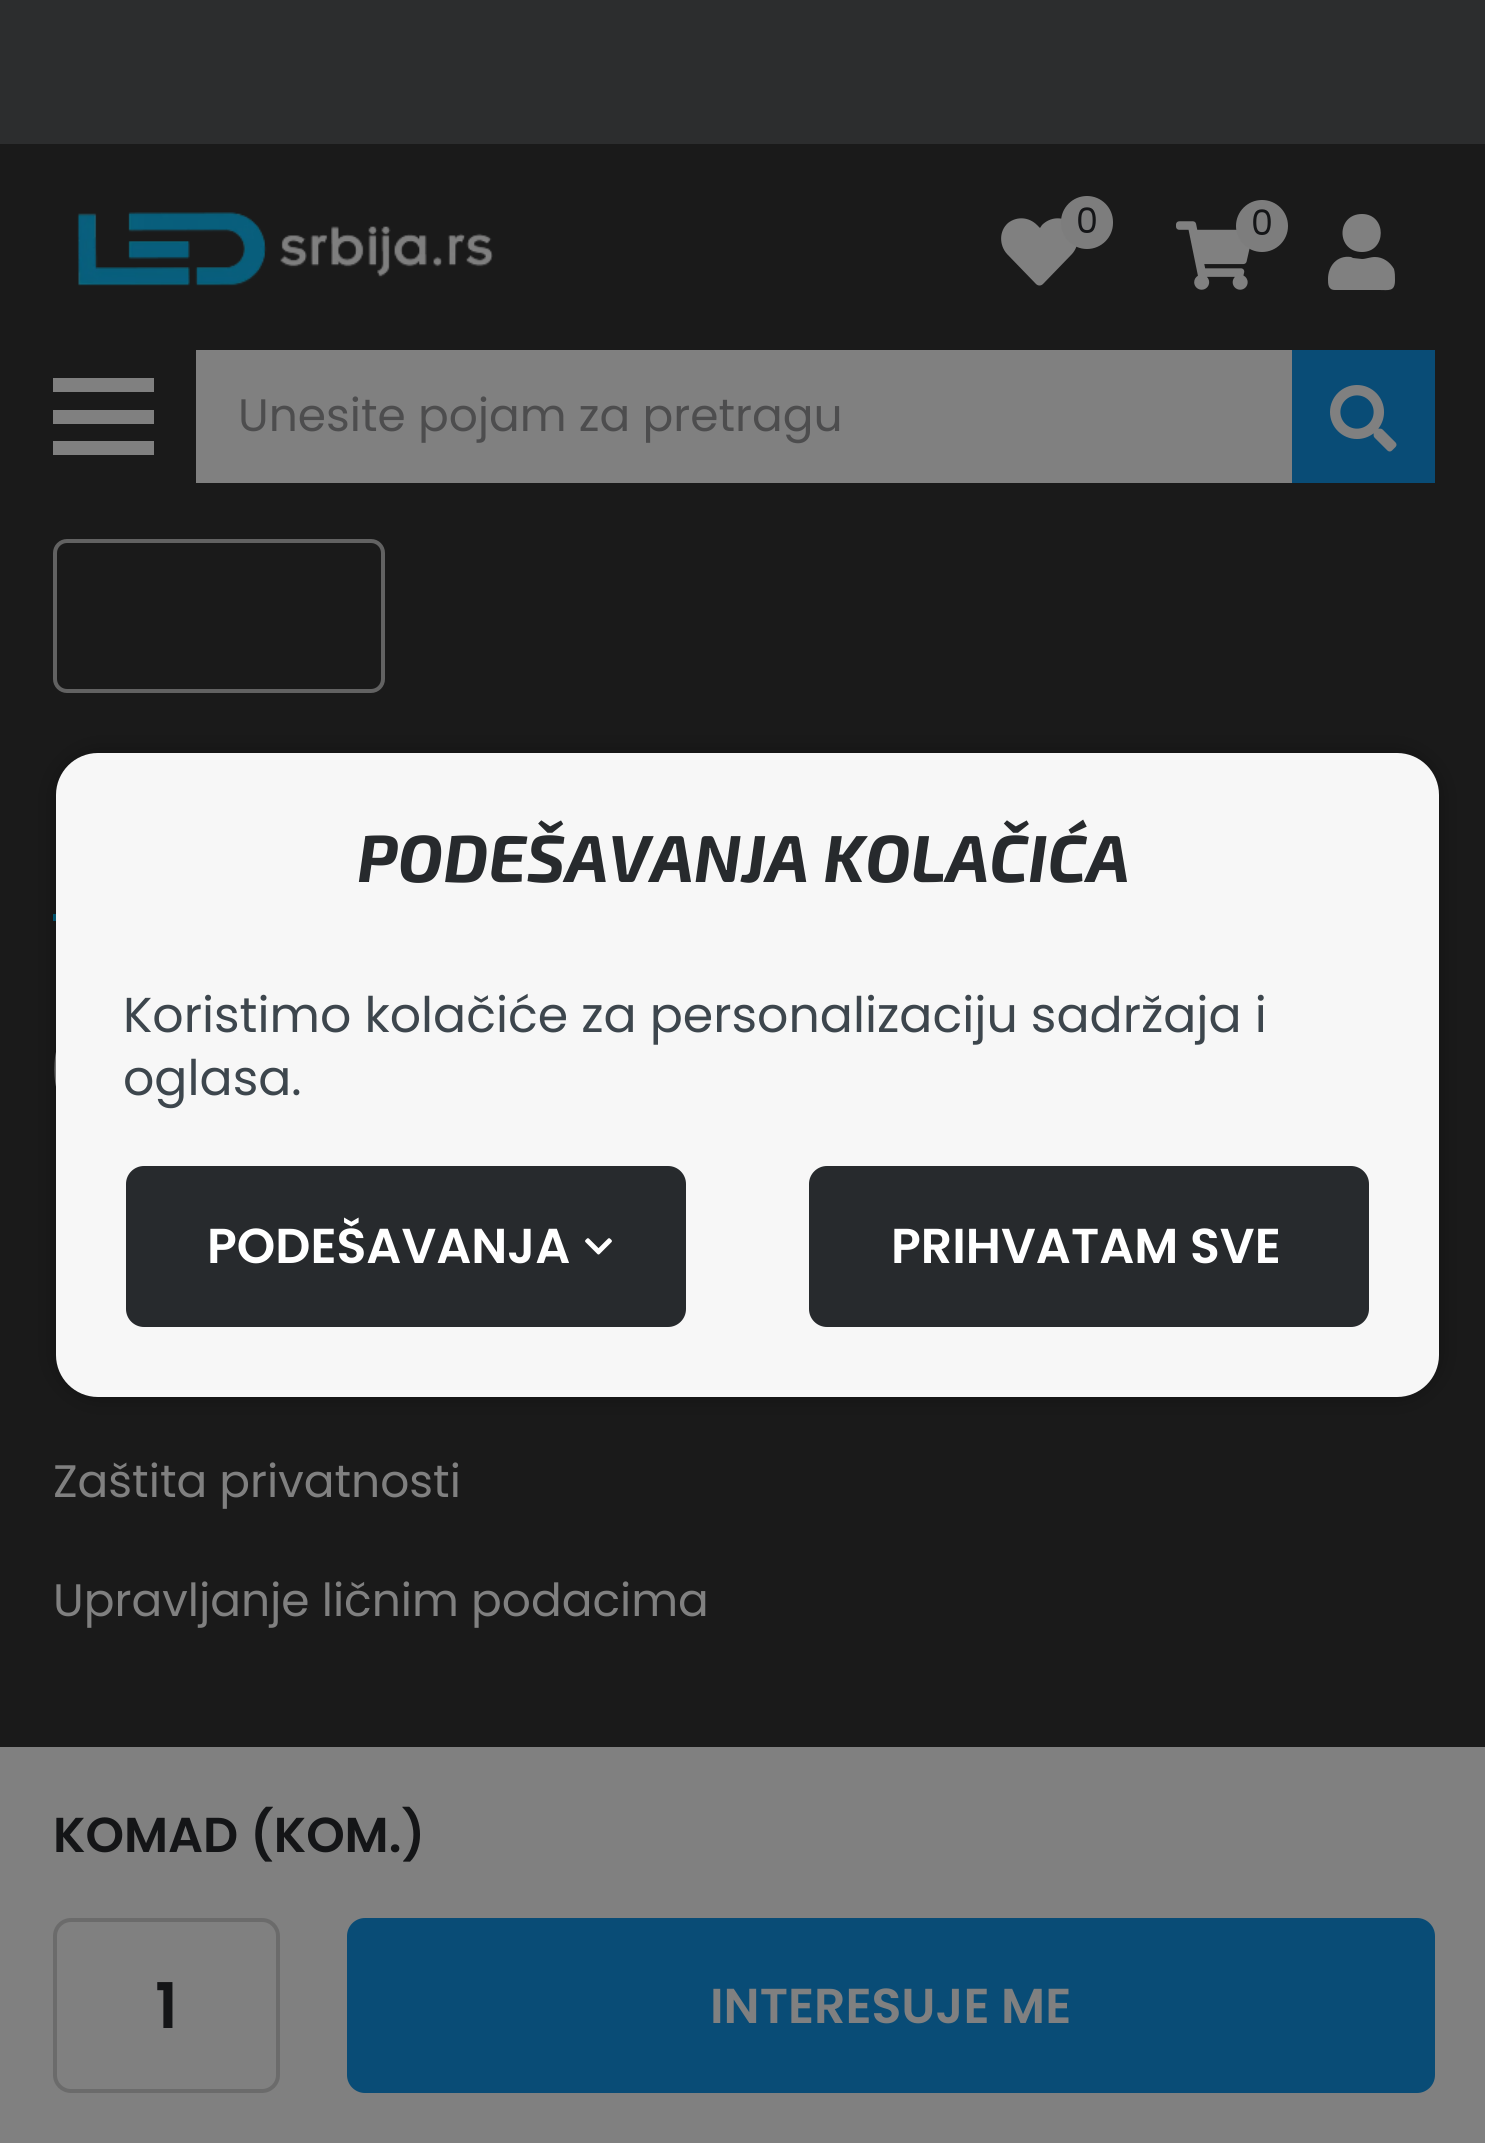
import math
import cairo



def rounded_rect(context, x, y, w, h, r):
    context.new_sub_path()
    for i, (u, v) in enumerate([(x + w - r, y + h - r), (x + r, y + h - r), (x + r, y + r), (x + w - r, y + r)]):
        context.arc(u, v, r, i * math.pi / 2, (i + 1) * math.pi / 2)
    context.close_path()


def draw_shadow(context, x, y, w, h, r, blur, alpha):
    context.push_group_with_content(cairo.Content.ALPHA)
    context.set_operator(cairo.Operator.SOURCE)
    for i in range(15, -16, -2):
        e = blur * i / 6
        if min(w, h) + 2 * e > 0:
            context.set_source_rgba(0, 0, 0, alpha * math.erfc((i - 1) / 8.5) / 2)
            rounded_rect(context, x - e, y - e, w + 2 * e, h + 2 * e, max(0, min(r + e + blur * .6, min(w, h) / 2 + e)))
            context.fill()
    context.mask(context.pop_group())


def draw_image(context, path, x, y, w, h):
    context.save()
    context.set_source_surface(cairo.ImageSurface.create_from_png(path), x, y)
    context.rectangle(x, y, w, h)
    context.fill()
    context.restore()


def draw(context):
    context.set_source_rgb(26 / 255, 26 / 255, 26 / 255)
    context.paint()
    context.set_source_rgb(44 / 255, 45 / 255, 46 / 255)
    context.rectangle(0, 0, 1485, 144)
    context.fill()
    draw_image(context, "images/1.png", 77, 212, 416, 74)
    context.set_source_rgb(128 / 255, 128 / 255, 128 / 255)
    context.new_path()
    context.move_to(1071, 223)
    context.curve_to(1062, 216, 1050, 217, 1042, 225)
    context.line_to(1040, 228)
    context.line_to(1037, 225)
    context.curve_to(1029, 217, 1017, 216, 1008, 223)
    context.curve_to(999, 231, 999, 245, 1007, 254)
    context.line_to(1036, 284)
    context.curve_to(1038, 286, 1041, 286, 1043, 284)
    context.line_to(1072, 254)
    context.curve_to(1080, 245, 1080, 231, 1071, 223)
    context.close_path()
    context.fill()
    context.set_source_rgb(125 / 255, 125 / 255, 125 / 255)
    rounded_rect(context, 1061, 196, 52, 53, 26)
    context.fill()
    draw_image(context, "images/2.png", 1176, 221, 74, 69)
    context.arc(1262, 226, 26, 0, 2 * math.pi)
    context.fill()
    context.set_source_rgb(128 / 255, 128 / 255, 128 / 255)
    context.new_path()
    context.move_to(1362, 252)
    context.curve_to(1387, 252, 1387, 214, 1362, 214)
    context.curve_to(1336, 214, 1336, 252, 1362, 252)
    context.close_path()
    context.move_to(1375, 257)
    context.curve_to(1370, 257, 1366, 259, 1362, 259)
    context.line_to(1353, 258)
    context.line_to(1351, 257)
    context.curve_to(1337, 255, 1328, 266, 1328, 279)
    context.curve_to(1328, 284, 1328, 290, 1335, 290)
    context.line_to(1379, 290)
    context.curve_to(1389, 290, 1395, 292, 1395, 280)
    context.curve_to(1395, 276, 1395, 273, 1394, 269)
    context.curve_to(1390, 262, 1383, 257, 1375, 257)
    context.close_path()
    context.fill()
    context.save()
    context.rectangle(53, 378, 101, 77)
    context.clip()
    context.new_path()
    context.move_to(52, 378)
    context.line_to(154, 378)
    context.line_to(154, 392)
    context.line_to(52, 392)
    context.close_path()
    context.move_to(52, 410)
    context.line_to(154, 410)
    context.line_to(154, 424)
    context.line_to(52, 424)
    context.close_path()
    context.move_to(52, 441)
    context.line_to(154, 441)
    context.line_to(154, 455)
    context.line_to(52, 455)
    context.close_path()
    context.fill()
    context.restore()
    context.rectangle(196, 350, 1096, 133)
    context.fill()
    context.set_source_rgb(9 / 255, 76 / 255, 118 / 255)
    context.rectangle(1292, 350, 143, 133)
    context.fill()
    draw_image(context, "images/3.png", 1330, 385, 67, 67)
    rounded_rect(context, 55, 541, 328, 150, 12)
    context.set_source_rgb(98 / 255, 98 / 255, 98 / 255)
    context.set_line_width(4)
    context.stroke()
    context.set_source_rgb(0, 94 / 255, 125 / 255)
    context.rectangle(53, 914, 3, 7)
    context.fill()
    draw_image(context, "images/4.png", 54, 1052, 2, 35)
    context.set_source_rgb(128 / 255, 128 / 255, 128 / 255)
    context.rectangle(0, 1747, 1485, 396)
    context.fill()
    rounded_rect(context, 55, 1920, 223, 171, 16)
    context.set_source_rgb(107 / 255, 107 / 255, 107 / 255)
    context.stroke()
    context.set_source_rgb(9 / 255, 76 / 255, 118 / 255)
    rounded_rect(context, 347, 1918, 1088, 175, 18)
    context.fill()
    context.save()
    context.set_fill_rule(cairo.FillRule.EVEN_ODD)
    context.new_path()
    context.move_to(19, 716)
    context.line_to(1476, 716)
    context.line_to(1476, 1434)
    context.line_to(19, 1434)
    context.close_path()
    context.move_to(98, 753)
    context.line_to(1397, 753)
    context.curve_to(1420, 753, 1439, 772, 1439, 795)
    context.line_to(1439, 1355)
    context.curve_to(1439, 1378, 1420, 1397, 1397, 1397)
    context.line_to(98, 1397)
    context.curve_to(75, 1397, 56, 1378, 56, 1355)
    context.line_to(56, 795)
    context.curve_to(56, 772, 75, 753, 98, 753)
    context.close_path()
    context.clip()
    context.set_source_rgb(0, 0, 0)
    draw_shadow(context, 56, 753, 1383, 644, 42, 12, 0.3)
    context.restore()
    context.set_source_rgb(247 / 255, 247 / 255, 247 / 255)
    rounded_rect(context, 56, 753, 1383, 644, 42)
    context.fill()
    context.set_source_rgb(39 / 255, 42 / 255, 45 / 255)
    rounded_rect(context, 126, 1166, 560, 161, 18)
    context.fill()
    draw_image(context, "images/5.png", 585, 1238, 27, 17)
    rounded_rect(context, 809, 1166, 560, 161, 18)
    context.fill()
    context.select_font_face("Poppins")
    context.set_font_size(35)
    context.set_source_rgb(20 / 255, 21 / 255, 23 / 255)
    context.move_to(1076, 233)
    context.show_text("0")
    context.move_to(1251, 235)
    context.show_text("0")
    context.set_font_size(45.5)
    context.set_source_rgb(77 / 255, 77 / 255, 78 / 255)
    context.move_to(238, 431)
    context.show_text("Unesite pojam za pretragu")
    context.set_source_rgb(128 / 255, 128 / 255, 128 / 255)
    context.move_to(53, 1497)
    context.show_text("Zaštita privatnosti")
    context.move_to(53, 1616)
    context.show_text("Upravljanje ličnim podacima")
    context.select_font_face("Poppins SemiBold")
    context.set_font_size(49)
    context.set_source_rgb(20 / 255, 21 / 255, 23 / 255)
    context.move_to(53, 1852)
    context.show_text("KOMAD (KOM.)")
    context.set_font_size(63)
    context.move_to(155, 2028)
    context.show_text("1")
    context.set_font_size(49)
    context.set_source_rgb(128 / 255, 128 / 255, 128 / 255)
    context.move_to(710, 2023)
    context.show_text("INTERESUJE ME")
    context.select_font_face("Exo 2", cairo.FontSlant.ITALIC, cairo.FontWeight.BOLD)
    context.set_font_size(66.5)
    context.set_source_rgb(39 / 255, 42 / 255, 45 / 255)
    context.move_to(357, 882)
    context.show_text("PODEŠAVANJA KOLAČIĆA")
    context.select_font_face("Poppins")
    context.set_font_size(49)
    context.set_source_rgb(61 / 255, 70 / 255, 77 / 255)
    context.move_to(123, 1032)
    context.show_text("Koristimo kolačiće za personalizaciju sadržaja i")
    context.move_to(123, 1095)
    context.show_text("oglasa.")
    context.select_font_face("Poppins SemiBold")
    context.set_source_rgb(1, 1, 1)
    context.move_to(207, 1263)
    context.show_text("PODEŠAVANJA")
    context.move_to(891, 1263)
    context.show_text("PRIHVATAM SVE")


surface = cairo.ImageSurface(cairo.Format.RGB24, 1485, 2143)
context = cairo.Context(surface)
options = cairo.FontOptions()
options.set_hint_metrics(cairo.HintMetrics.OFF)
options.set_hint_style(cairo.HintStyle.NONE)
context.set_font_options(options)
context.set_miter_limit(4)
draw(context)
surface.write_to_png("out.png")
